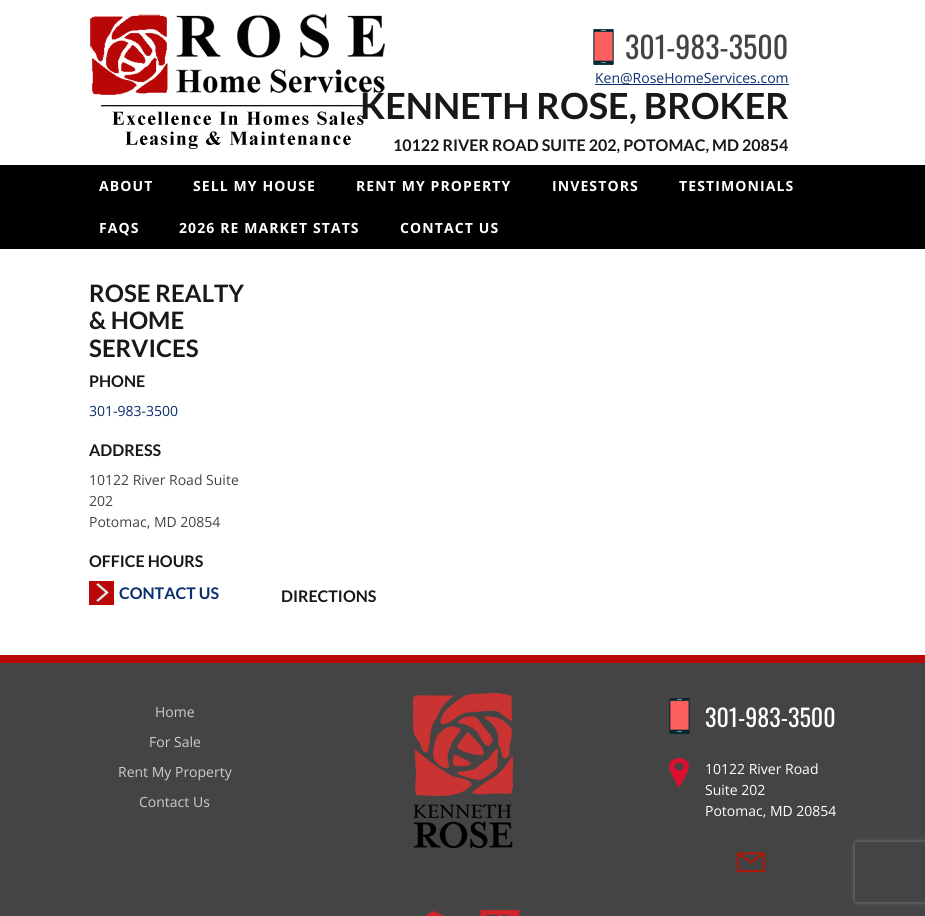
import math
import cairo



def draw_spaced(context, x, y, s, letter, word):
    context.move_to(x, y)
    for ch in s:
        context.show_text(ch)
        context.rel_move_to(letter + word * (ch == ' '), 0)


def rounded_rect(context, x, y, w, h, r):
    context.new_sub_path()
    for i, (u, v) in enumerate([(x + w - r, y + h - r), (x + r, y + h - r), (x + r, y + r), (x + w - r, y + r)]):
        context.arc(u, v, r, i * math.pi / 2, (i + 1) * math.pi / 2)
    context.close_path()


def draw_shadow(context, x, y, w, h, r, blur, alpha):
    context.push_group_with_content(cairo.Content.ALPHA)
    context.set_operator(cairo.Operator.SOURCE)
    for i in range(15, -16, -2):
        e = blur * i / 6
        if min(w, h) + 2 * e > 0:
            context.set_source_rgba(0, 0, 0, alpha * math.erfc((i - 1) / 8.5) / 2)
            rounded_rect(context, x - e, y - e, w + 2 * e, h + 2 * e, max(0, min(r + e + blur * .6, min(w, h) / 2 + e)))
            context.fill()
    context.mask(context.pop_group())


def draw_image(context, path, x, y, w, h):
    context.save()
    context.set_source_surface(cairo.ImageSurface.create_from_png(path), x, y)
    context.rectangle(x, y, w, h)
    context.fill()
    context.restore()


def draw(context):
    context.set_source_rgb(68 / 255, 68 / 255, 68 / 255)
    context.paint()
    context.set_source_rgb(1, 1, 1)
    context.rectangle(0, 0, 925, 165)
    context.fill()
    draw_image(context, "images/1.png", 90, 14, 295, 135)
    draw_image(context, "images/2.png", 593, 29, 21, 36)
    context.set_source_rgb(11 / 255, 46 / 255, 109 / 255)
    context.rectangle(595, 84, 194, 1)
    context.fill()
    context.set_source_rgb(0, 0, 0)
    context.rectangle(0, 165, 925, 84)
    context.fill()
    context.set_source_rgb(1, 1, 1)
    context.rectangle(0, 249, 925, 406)
    context.fill()
    draw_image(context, "images/3.png", 89, 581, 25, 24)
    context.set_source_rgb(184 / 255, 8 / 255, 7 / 255)
    context.rectangle(0, 655, 925, 8)
    context.fill()
    draw_image(context, "images/4.png", 413, 693, 100, 155)
    draw_image(context, "images/5.png", 669, 698, 21, 36)
    draw_image(context, "images/6.png", 669, 758, 20, 30)
    draw_image(context, "images/7.png", 737, 852, 28, 21)
    draw_image(context, "images/8.png", 424, 910, 96, 6)
    context.save()
    context.set_fill_rule(cairo.FillRule.EVEN_ODD)
    context.new_path()
    context.move_to(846, 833)
    context.line_to(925, 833)
    context.line_to(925, 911)
    context.line_to(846, 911)
    context.close_path()
    context.move_to(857, 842)
    context.line_to(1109, 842)
    context.curve_to(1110, 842, 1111, 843, 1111, 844)
    context.line_to(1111, 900)
    context.curve_to(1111, 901, 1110, 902, 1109, 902)
    context.line_to(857, 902)
    context.curve_to(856, 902, 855, 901, 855, 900)
    context.line_to(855, 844)
    context.curve_to(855, 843, 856, 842, 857, 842)
    context.close_path()
    context.clip()
    context.set_source_rgb(128 / 255, 128 / 255, 128 / 255)
    draw_shadow(context, 855, 842, 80, 60, 2, 2.5, 1)
    context.restore()
    context.select_font_face("Oswald")
    context.set_font_size(30)
    context.set_source_rgb(68 / 255, 68 / 255, 68 / 255)
    context.move_to(625, 59)
    context.show_text("301-983-3500")
    context.select_font_face("Open Sans")
    context.set_font_size(14)
    context.set_source_rgb(11 / 255, 46 / 255, 109 / 255)
    context.move_to(595, 83)
    context.show_text("Ken@RoseHomeServices.com")
    context.select_font_face("Lato", cairo.FontSlant.NORMAL, cairo.FontWeight.BOLD)
    context.set_font_size(36)
    context.set_source_rgb(24 / 255, 24 / 255, 24 / 255)
    context.move_to(360, 119)
    context.show_text("KENNETH ROSE, BROKER")
    context.set_font_size(16)
    context.move_to(393, 151)
    context.show_text("10122 RIVER ROAD SUITE 202, POTOMAC, MD 20854")
    context.select_font_face("Open Sans", cairo.FontSlant.NORMAL, cairo.FontWeight.BOLD)
    context.set_font_size(14)
    context.set_source_rgb(1, 1, 1)
    draw_spaced(context, 99, 191, "ABOUT", 1.1, 0)
    draw_spaced(context, 193, 191, "SELL MY HOUSE", 1.1, 0)
    draw_spaced(context, 356, 191, "RENT MY PROPERTY", 1.1, 0)
    draw_spaced(context, 552, 191, "INVESTORS", 1.1, 0)
    draw_spaced(context, 679, 191, "TESTIMONIALS", 1.1, 0)
    draw_spaced(context, 99, 233, "FAQS", 1.1, 0)
    draw_spaced(context, 179, 233, "2026 RE MARKET STATS", 1.1, 0)
    draw_spaced(context, 400, 233, "CONTACT US", 1.1, 0)
    context.select_font_face("Lato", cairo.FontSlant.NORMAL, cairo.FontWeight.BOLD)
    context.set_font_size(24)
    context.set_source_rgb(24 / 255, 24 / 255, 24 / 255)
    context.move_to(89, 302)
    context.show_text("ROSE REALTY")
    context.move_to(89, 329)
    context.show_text("& HOME")
    context.move_to(89, 357)
    context.show_text("SERVICES")
    context.set_font_size(16)
    context.move_to(89, 387)
    context.show_text("PHONE")
    context.select_font_face("Open Sans")
    context.set_font_size(14)
    context.set_source_rgb(11 / 255, 46 / 255, 109 / 255)
    context.move_to(89, 416)
    context.show_text("301-983-3500")
    context.select_font_face("Lato", cairo.FontSlant.NORMAL, cairo.FontWeight.BOLD)
    context.set_font_size(16)
    context.set_source_rgb(24 / 255, 24 / 255, 24 / 255)
    context.move_to(89, 456)
    context.show_text("ADDRESS")
    context.select_font_face("Open Sans")
    context.set_font_size(14)
    context.set_source_rgb(68 / 255, 68 / 255, 68 / 255)
    context.move_to(89, 485)
    context.show_text("10122 River Road Suite")
    context.move_to(89, 506)
    context.show_text("202")
    context.move_to(89, 527)
    context.show_text("Potomac, MD 20854")
    context.select_font_face("Lato", cairo.FontSlant.NORMAL, cairo.FontWeight.BOLD)
    context.set_font_size(16)
    context.set_source_rgb(24 / 255, 24 / 255, 24 / 255)
    context.move_to(89, 567)
    context.show_text("OFFICE HOURS")
    context.set_source_rgb(11 / 255, 46 / 255, 109 / 255)
    context.move_to(119, 599)
    context.show_text("CONTACT US")
    context.set_source_rgb(24 / 255, 24 / 255, 24 / 255)
    context.move_to(281, 602)
    context.show_text("DIRECTIONS")
    context.select_font_face("Open Sans")
    context.set_font_size(14)
    context.set_source_rgb(204 / 255, 204 / 255, 204 / 255)
    context.move_to(155, 717)
    context.show_text("Home")
    context.move_to(149, 747)
    context.show_text("For Sale")
    context.move_to(118, 777)
    context.show_text("Rent My Property")
    context.move_to(139, 807)
    context.show_text("Contact Us")
    context.select_font_face("Oswald")
    context.set_font_size(24)
    context.set_source_rgb(1, 1, 1)
    context.move_to(705, 727)
    context.show_text("301-983-3500")
    context.select_font_face("Open Sans")
    context.set_font_size(14)
    context.move_to(705, 774)
    context.show_text("10122 River Road")
    context.move_to(705, 795)
    context.show_text("Suite 202")
    context.move_to(705, 816)
    context.show_text("Potomac, MD 20854")


surface = cairo.ImageSurface(cairo.Format.RGB24, 925, 916)
context = cairo.Context(surface)
options = cairo.FontOptions()
options.set_hint_metrics(cairo.HintMetrics.OFF)
options.set_hint_style(cairo.HintStyle.NONE)
context.set_font_options(options)
context.set_miter_limit(4)
draw(context)
surface.write_to_png("out.png")
